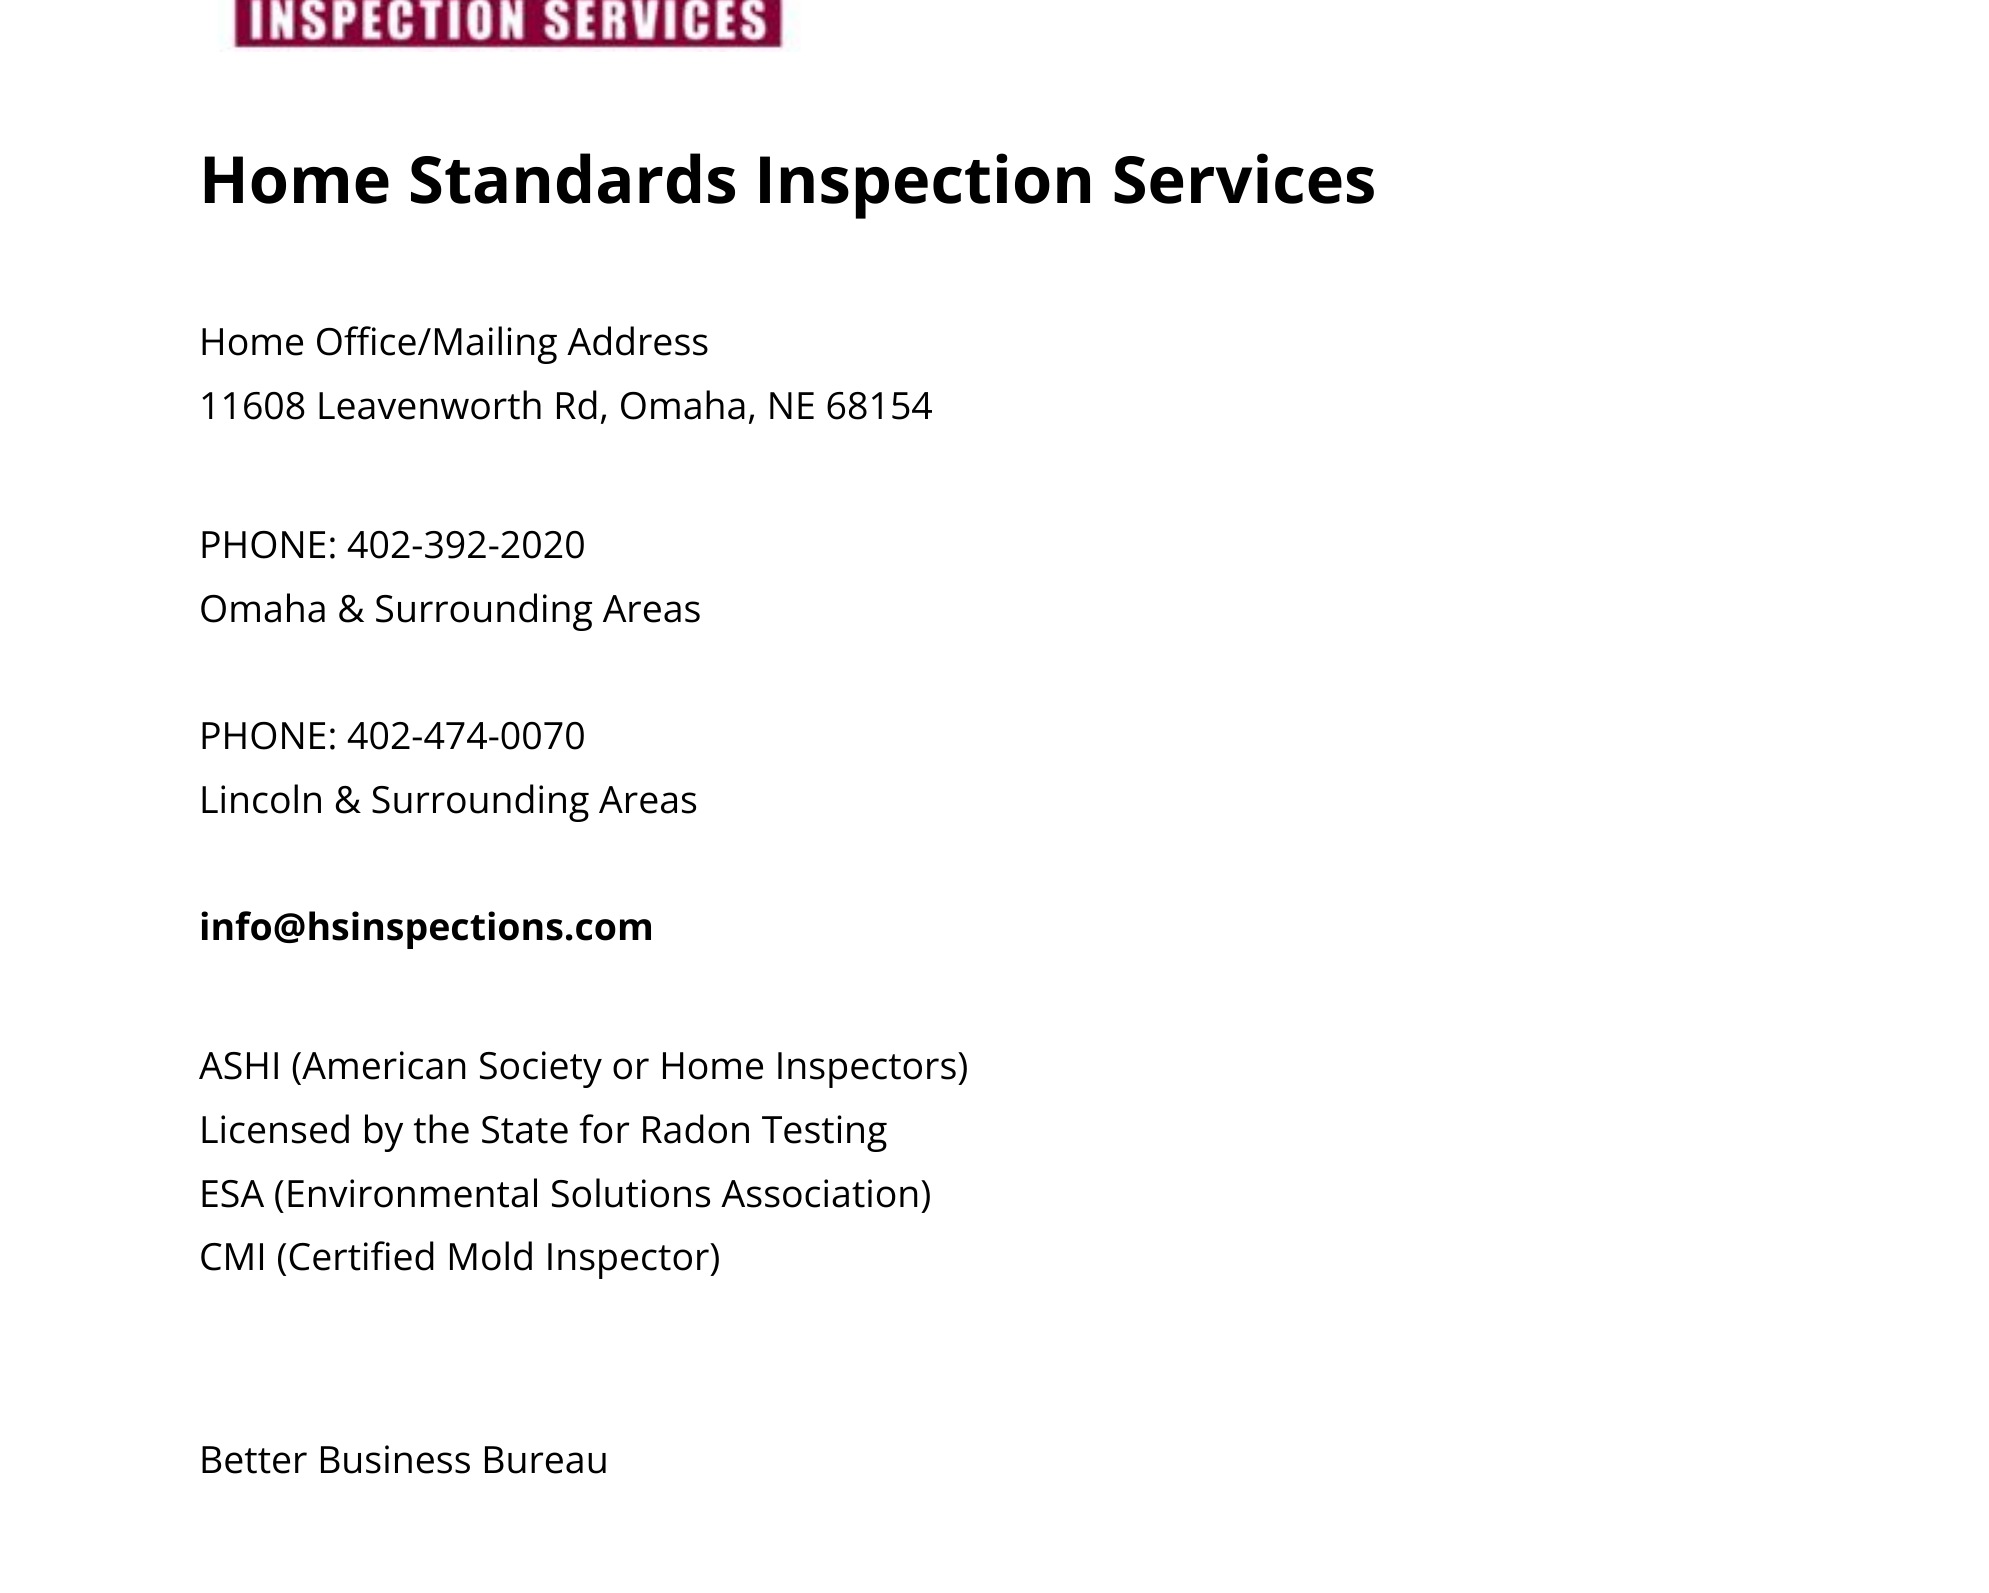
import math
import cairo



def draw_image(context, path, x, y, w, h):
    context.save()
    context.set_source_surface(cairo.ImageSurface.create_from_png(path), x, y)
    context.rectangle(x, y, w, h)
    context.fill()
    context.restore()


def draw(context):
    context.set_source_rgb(1, 1, 1)
    context.paint()
    draw_image(context, "images/1.png", 217, 0, 584, 52)
    context.select_font_face("Open Sans", cairo.FontSlant.NORMAL, cairo.FontWeight.BOLD)
    context.set_font_size(65)
    context.set_source_rgb(0, 0, 0)
    context.move_to(199, 203)
    context.show_text("Home Standards Inspection Services")
    context.select_font_face("Open Sans")
    context.set_font_size(37.5)
    context.move_to(199, 355)
    context.show_text("Home Office/Mailing Address")
    context.move_to(199, 419)
    context.show_text("11608 Leavenworth Rd, Omaha, NE 68154")
    context.move_to(199, 558)
    context.show_text("PHONE: 402-392-2020")
    context.move_to(199, 622)
    context.show_text("Omaha & Surrounding Areas")
    context.move_to(199, 749)
    context.show_text("PHONE: 402-474-0070")
    context.move_to(199, 813)
    context.show_text("Lincoln & Surrounding Areas")
    context.select_font_face("Open Sans", cairo.FontSlant.NORMAL, cairo.FontWeight.BOLD)
    context.move_to(199, 940)
    context.show_text("info@hsinspections.com")
    context.select_font_face("Open Sans")
    context.move_to(199, 1079)
    context.show_text("ASHI (American Society or Home Inspectors)")
    context.move_to(199, 1143)
    context.show_text("Licensed by the State for Radon Testing")
    context.move_to(199, 1207)
    context.show_text("ESA (Environmental Solutions Association)")
    context.move_to(199, 1270)
    context.show_text("CMI (Certified Mold Inspector)")
    context.move_to(199, 1473)
    context.show_text("Better Business Bureau")


surface = cairo.ImageSurface(cairo.Format.RGB24, 1989, 1593)
context = cairo.Context(surface)
options = cairo.FontOptions()
options.set_hint_metrics(cairo.HintMetrics.OFF)
options.set_hint_style(cairo.HintStyle.NONE)
context.set_font_options(options)
context.set_miter_limit(4)
draw(context)
surface.write_to_png("out.png")
